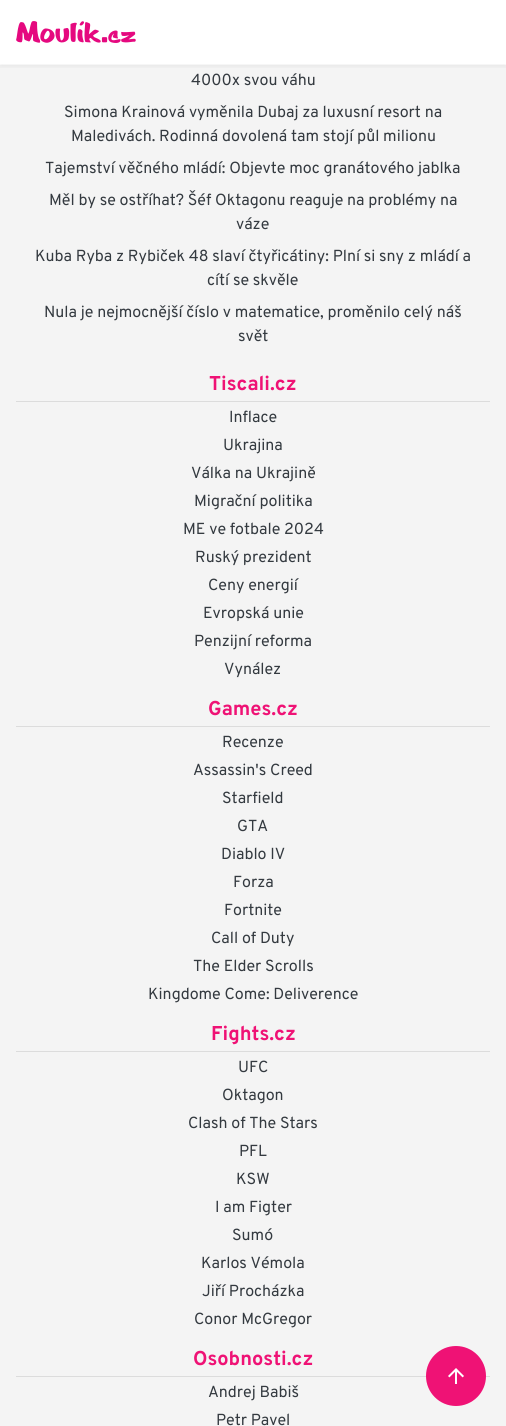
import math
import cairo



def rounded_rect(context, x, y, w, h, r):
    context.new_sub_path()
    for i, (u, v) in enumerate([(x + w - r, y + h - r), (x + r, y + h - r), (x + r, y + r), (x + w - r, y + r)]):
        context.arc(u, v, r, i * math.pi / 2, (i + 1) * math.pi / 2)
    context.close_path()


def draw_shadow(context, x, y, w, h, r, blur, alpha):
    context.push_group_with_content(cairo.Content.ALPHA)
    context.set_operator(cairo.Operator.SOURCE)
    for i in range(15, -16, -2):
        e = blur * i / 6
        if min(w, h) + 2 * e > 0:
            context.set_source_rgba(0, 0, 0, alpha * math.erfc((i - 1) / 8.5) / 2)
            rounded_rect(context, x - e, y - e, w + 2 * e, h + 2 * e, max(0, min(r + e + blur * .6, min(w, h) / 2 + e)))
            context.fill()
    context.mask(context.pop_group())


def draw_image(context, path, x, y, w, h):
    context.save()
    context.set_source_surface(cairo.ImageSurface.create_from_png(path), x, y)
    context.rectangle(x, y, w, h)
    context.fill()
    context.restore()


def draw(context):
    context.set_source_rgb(244 / 255, 244 / 255, 244 / 255)
    context.paint()
    context.set_source_rgb(1, 1, 1)
    context.rectangle(0, 0, 506, 65)
    context.fill()
    context.save()
    context.rectangle(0, 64, 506, 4)
    context.clip()
    context.set_source_rgb(0, 0, 0)
    draw_shadow(context, 0, 3, 506, 64, 0, 3, 0.05)
    context.restore()
    draw_image(context, "images/1.png", 16, 21, 120, 22)
    context.set_source_rgb(220 / 255, 220 / 255, 220 / 255)
    context.rectangle(16, 401, 474, 1)
    context.fill()
    context.rectangle(16, 726, 474, 1)
    context.fill()
    context.rectangle(16, 1051, 474, 1)
    context.fill()
    context.rectangle(16, 1376, 474, 1)
    context.fill()
    context.set_source_rgb(239 / 255, 18 / 255, 117 / 255)
    context.arc(456, 1376, 30, 0, 2 * math.pi)
    context.fill()
    draw_image(context, "images/2.png", 448, 1368, 16, 16)
    context.select_font_face("Overpass")
    context.set_font_size(16)
    context.set_source_rgb(52 / 255, 58 / 255, 64 / 255)
    context.move_to(191, 85)
    context.show_text("4000x svou váhu")
    context.move_to(64, 117)
    context.show_text("Simona Krainová vyměnila Dubaj za luxusní resort na")
    context.move_to(71, 141)
    context.show_text("Maledivách. Rodinná dovolená tam stojí půl milionu")
    context.move_to(45, 173)
    context.show_text("Tajemství věčného mládí: Objevte moc granátového jablka")
    context.move_to(49, 205)
    context.show_text("Měl by se ostříhat? Šéf Oktagonu reaguje na problémy na")
    context.move_to(236, 229)
    context.show_text("váze")
    context.move_to(35, 261)
    context.show_text("Kuba Ryba z Rybiček 48 slaví čtyřicátiny: Plní si sny z mládí a")
    context.move_to(207, 285)
    context.show_text("cítí se skvěle")
    context.move_to(44, 317)
    context.show_text("Nula je nejmocnější číslo v matematice, proměnilo celý náš")
    context.move_to(238, 341)
    context.show_text("svět")
    context.select_font_face("Overpass", cairo.FontSlant.NORMAL, cairo.FontWeight.BOLD)
    context.set_font_size(20)
    context.set_source_rgb(239 / 255, 18 / 255, 117 / 255)
    context.move_to(209, 390)
    context.show_text("Tiscali.cz")
    context.select_font_face("Overpass")
    context.set_font_size(16)
    context.set_source_rgb(52 / 255, 58 / 255, 64 / 255)
    context.move_to(229, 422)
    context.show_text("Inflace")
    context.move_to(223, 450)
    context.show_text("Ukrajina")
    context.move_to(191, 478)
    context.show_text("Válka na Ukrajině")
    context.move_to(194, 506)
    context.show_text("Migrační politika")
    context.move_to(183, 534)
    context.show_text("ME ve fotbale 2024")
    context.move_to(195, 562)
    context.show_text("Ruský prezident")
    context.move_to(208, 590)
    context.show_text("Ceny energií")
    context.move_to(203, 618)
    context.show_text("Evropská unie")
    context.move_to(194, 646)
    context.show_text("Penzijní reforma")
    context.move_to(224, 674)
    context.show_text("Vynález")
    context.select_font_face("Overpass", cairo.FontSlant.NORMAL, cairo.FontWeight.BOLD)
    context.set_font_size(20)
    context.set_source_rgb(239 / 255, 18 / 255, 117 / 255)
    context.move_to(208, 715)
    context.show_text("Games.cz")
    context.select_font_face("Overpass")
    context.set_font_size(16)
    context.set_source_rgb(52 / 255, 58 / 255, 64 / 255)
    context.move_to(222, 747)
    context.show_text("Recenze")
    context.move_to(193, 775)
    context.show_text("Assassin's Creed")
    context.move_to(222, 803)
    context.show_text("Starfield")
    context.move_to(237, 831)
    context.show_text("GTA")
    context.move_to(221, 859)
    context.show_text("Diablo IV")
    context.move_to(233, 887)
    context.show_text("Forza")
    context.move_to(224, 915)
    context.show_text("Fortnite")
    context.move_to(211, 943)
    context.show_text("Call of Duty")
    context.move_to(193, 971)
    context.show_text("The Elder Scrolls")
    context.move_to(148, 999)
    context.show_text("Kingdome Come: Deliverence")
    context.select_font_face("Overpass", cairo.FontSlant.NORMAL, cairo.FontWeight.BOLD)
    context.set_font_size(20)
    context.set_source_rgb(239 / 255, 18 / 255, 117 / 255)
    context.move_to(211, 1040)
    context.show_text("Fights.cz")
    context.select_font_face("Overpass")
    context.set_font_size(16)
    context.set_source_rgb(52 / 255, 58 / 255, 64 / 255)
    context.move_to(238, 1072)
    context.show_text("UFC")
    context.move_to(222, 1100)
    context.show_text("Oktagon")
    context.move_to(188, 1128)
    context.show_text("Clash of The Stars")
    context.move_to(239, 1156)
    context.show_text("PFL")
    context.move_to(236, 1184)
    context.show_text("KSW")
    context.move_to(215, 1212)
    context.show_text("I am Figter")
    context.move_to(232, 1240)
    context.show_text("Sumó")
    context.move_to(201, 1268)
    context.show_text("Karlos Vémola")
    context.move_to(202, 1296)
    context.show_text("Jiří Procházka")
    context.move_to(194, 1324)
    context.show_text("Conor McGregor")
    context.select_font_face("Overpass", cairo.FontSlant.NORMAL, cairo.FontWeight.BOLD)
    context.set_font_size(20)
    context.set_source_rgb(239 / 255, 18 / 255, 117 / 255)
    context.move_to(193, 1365)
    context.show_text("Osobnosti.cz")
    context.select_font_face("Overpass")
    context.set_font_size(16)
    context.set_source_rgb(52 / 255, 58 / 255, 64 / 255)
    context.move_to(208, 1397)
    context.show_text("Andrej Babiš")
    context.move_to(216, 1425)
    context.show_text("Petr Pavel")


surface = cairo.ImageSurface(cairo.Format.RGB24, 506, 1426)
context = cairo.Context(surface)
options = cairo.FontOptions()
options.set_hint_metrics(cairo.HintMetrics.OFF)
options.set_hint_style(cairo.HintStyle.NONE)
context.set_font_options(options)
context.set_miter_limit(4)
draw(context)
surface.write_to_png("out.png")
